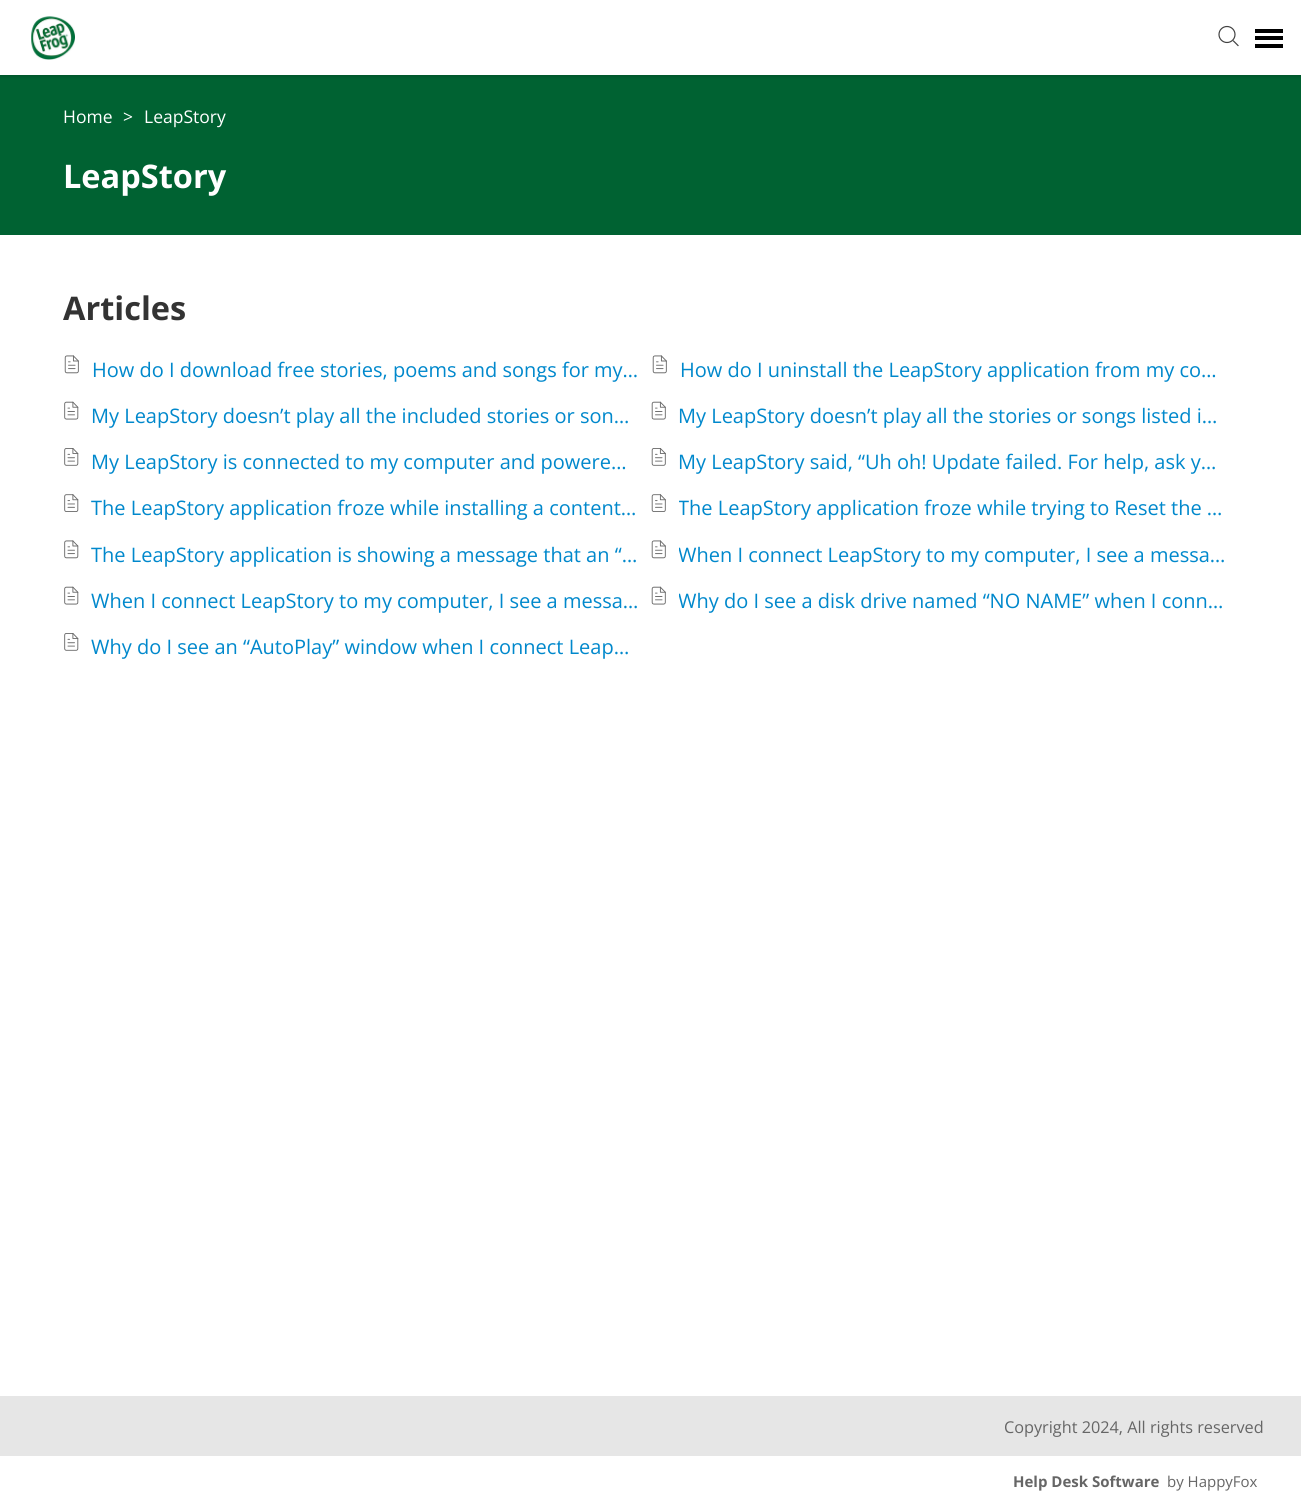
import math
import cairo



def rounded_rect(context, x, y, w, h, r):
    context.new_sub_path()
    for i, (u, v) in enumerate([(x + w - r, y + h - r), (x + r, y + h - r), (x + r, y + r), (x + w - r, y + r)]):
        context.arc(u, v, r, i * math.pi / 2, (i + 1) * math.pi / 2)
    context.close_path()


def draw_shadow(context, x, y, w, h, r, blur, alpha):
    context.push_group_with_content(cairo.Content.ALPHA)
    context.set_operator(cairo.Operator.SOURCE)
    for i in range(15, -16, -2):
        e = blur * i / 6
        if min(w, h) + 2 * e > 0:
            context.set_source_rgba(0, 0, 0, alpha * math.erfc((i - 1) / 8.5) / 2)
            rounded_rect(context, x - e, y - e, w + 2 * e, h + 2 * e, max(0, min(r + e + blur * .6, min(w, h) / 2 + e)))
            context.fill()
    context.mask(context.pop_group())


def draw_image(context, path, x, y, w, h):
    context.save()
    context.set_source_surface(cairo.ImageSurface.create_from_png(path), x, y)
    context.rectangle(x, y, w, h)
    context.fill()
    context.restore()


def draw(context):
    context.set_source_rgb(1, 1, 1)
    context.paint()
    context.set_source_rgb(0, 98 / 255, 50 / 255)
    context.rectangle(0, 75, 1301, 160)
    context.fill()
    context.save()
    context.rectangle(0, 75, 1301, 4)
    context.clip()
    context.set_source_rgb(0, 0, 0)
    draw_shadow(context, 0, 1, 1301, 75, 0, 2, 0.2)
    context.restore()
    draw_image(context, "images/1.png", 31, 16, 44, 44)
    context.arc(1227, 34.5, 8, 0, 2 * math.pi)
    context.set_source_rgb(66 / 255, 66 / 255, 66 / 255)
    context.set_line_width(1.2)
    context.stroke()
    context.new_path()
    context.move_to(1233.5, 41)
    context.line_to(1238, 45.5)
    context.set_line_cap(cairo.LineCap.SQUARE)
    context.stroke()
    context.set_source_rgb(0, 0, 0)
    context.rectangle(1255, 29, 28, 4)
    context.fill()
    context.rectangle(1255, 36, 28, 4)
    context.fill()
    context.rectangle(1255, 44, 28, 4)
    context.fill()
    draw_image(context, "images/2.png", 64, 355, 15, 19)
    draw_image(context, "images/3.png", 652, 355, 15, 19)
    draw_image(context, "images/4.png", 64, 401, 15, 19)
    draw_image(context, "images/5.png", 651, 401, 15, 19)
    draw_image(context, "images/6.png", 64, 448, 15, 18)
    draw_image(context, "images/7.png", 651, 448, 15, 18)
    draw_image(context, "images/8.png", 64, 494, 15, 18)
    draw_image(context, "images/9.png", 651, 494, 15, 18)
    draw_image(context, "images/10.png", 64, 540, 15, 19)
    draw_image(context, "images/11.png", 651, 540, 15, 19)
    draw_image(context, "images/4.png", 64, 586, 15, 19)
    draw_image(context, "images/5.png", 651, 586, 15, 19)
    draw_image(context, "images/6.png", 64, 633, 15, 18)
    context.set_source_rgb(230 / 255, 230 / 255, 230 / 255)
    context.rectangle(0, 1396, 1301, 60)
    context.fill()
    context.select_font_face("Open Sans")
    context.set_font_size(17.5)
    context.set_source_rgb(1, 1, 1)
    context.move_to(63, 123)
    context.show_text("Home")
    context.move_to(123, 123)
    context.show_text(">")
    context.move_to(144, 123)
    context.show_text("LeapStory")
    context.select_font_face("Open Sans", cairo.FontSlant.NORMAL, cairo.FontWeight.BOLD)
    context.set_font_size(32.5)
    context.move_to(63, 188)
    context.show_text("LeapStory")
    context.set_source_rgb(51 / 255, 51 / 255, 51 / 255)
    context.move_to(63, 320)
    context.show_text("Articles")
    context.select_font_face("Open Sans")
    context.set_font_size(20)
    context.set_source_rgb(0, 136 / 255, 204 / 255)
    context.move_to(92, 377)
    context.show_text("How do I download free stories, poems and songs for my…")
    context.move_to(680, 377)
    context.show_text("How do I uninstall the LeapStory application from my co…")
    context.move_to(91, 423)
    context.show_text("My LeapStory doesn’t play all the included stories or son…")
    context.move_to(678, 423)
    context.show_text("My LeapStory doesn’t play all the stories or songs listed i…")
    context.move_to(91, 469)
    context.show_text("My LeapStory is connected to my computer and powere…")
    context.move_to(678, 469)
    context.show_text("My LeapStory said, “Uh oh! Update failed. For help, ask y…")
    context.move_to(91, 515)
    context.show_text("The LeapStory application froze while installing a content…")
    context.save()
    context.rectangle(679, 494, 560, 27)
    context.clip()
    context.move_to(678, 515)
    context.show_text("The LeapStory application froze while trying to Reset the …")
    context.restore()
    context.move_to(91, 562)
    context.show_text("The LeapStory application is showing a message that an “…")
    context.save()
    context.rectangle(679, 540, 560, 28)
    context.clip()
    context.move_to(678, 562)
    context.show_text("When I connect LeapStory to my computer, I see a messa…")
    context.restore()
    context.move_to(91, 608)
    context.show_text("When I connect LeapStory to my computer, I see a messa…")
    context.save()
    context.rectangle(679, 586, 560, 28)
    context.clip()
    context.move_to(678, 608)
    context.show_text("Why do I see a disk drive named “NO NAME” when I conn…")
    context.restore()
    context.move_to(91, 654)
    context.show_text("Why do I see an “AutoPlay” window when I connect Leap…")
    context.set_font_size(16.25)
    context.set_source_rgb(102 / 255, 102 / 255, 102 / 255)
    context.move_to(1004, 1433)
    context.show_text("Copyright 2024, All rights reserved")
    context.select_font_face("Open Sans", cairo.FontSlant.NORMAL, cairo.FontWeight.BOLD)
    context.set_font_size(15)
    context.move_to(1013, 1487)
    context.show_text("Help Desk Software")
    context.select_font_face("Open Sans")
    context.move_to(1167, 1487)
    context.show_text("by HappyFox")


surface = cairo.ImageSurface(cairo.Format.RGB24, 1301, 1505)
context = cairo.Context(surface)
options = cairo.FontOptions()
options.set_hint_metrics(cairo.HintMetrics.OFF)
options.set_hint_style(cairo.HintStyle.NONE)
context.set_font_options(options)
context.set_miter_limit(4)
draw(context)
surface.write_to_png("out.png")
